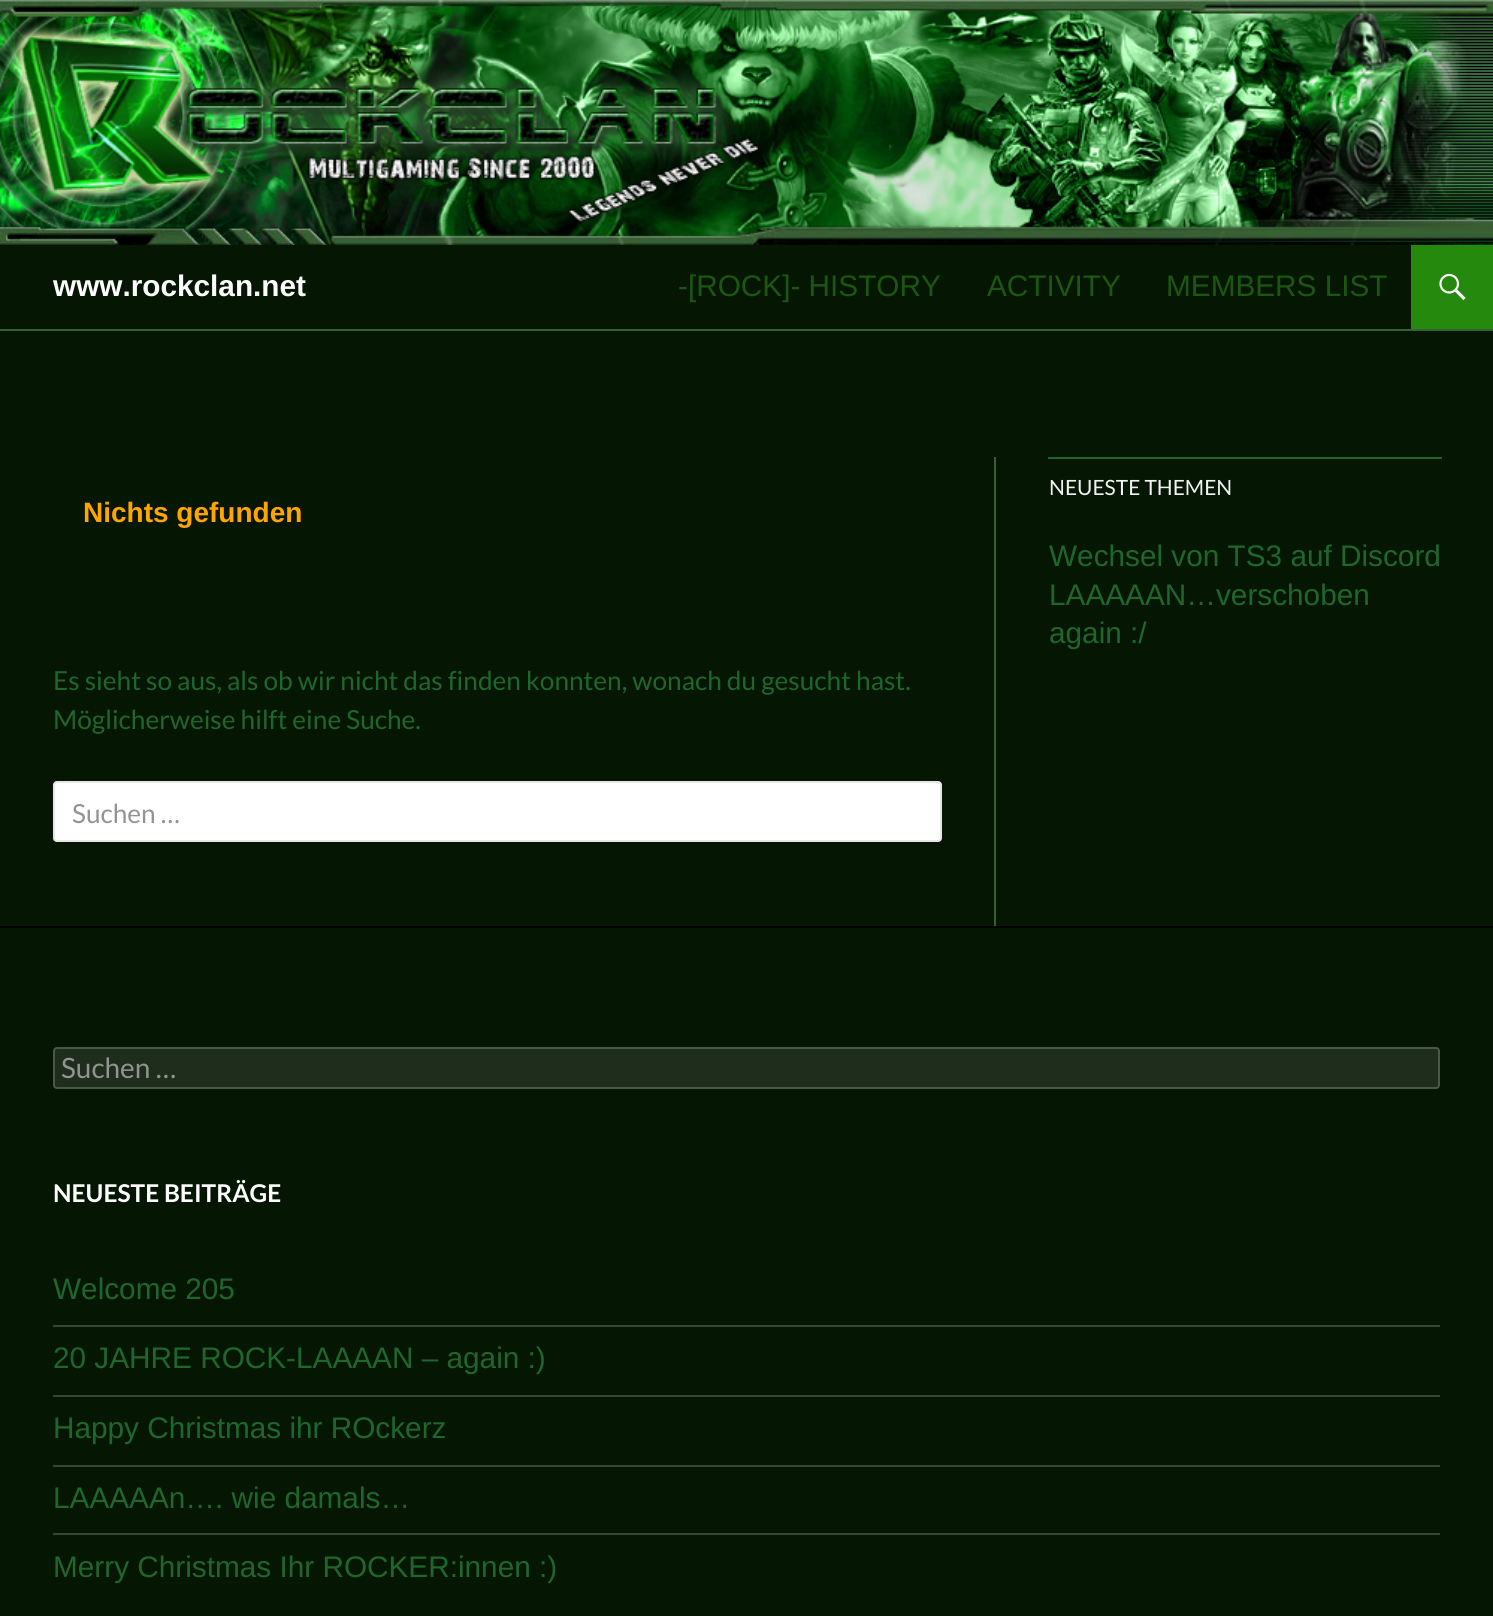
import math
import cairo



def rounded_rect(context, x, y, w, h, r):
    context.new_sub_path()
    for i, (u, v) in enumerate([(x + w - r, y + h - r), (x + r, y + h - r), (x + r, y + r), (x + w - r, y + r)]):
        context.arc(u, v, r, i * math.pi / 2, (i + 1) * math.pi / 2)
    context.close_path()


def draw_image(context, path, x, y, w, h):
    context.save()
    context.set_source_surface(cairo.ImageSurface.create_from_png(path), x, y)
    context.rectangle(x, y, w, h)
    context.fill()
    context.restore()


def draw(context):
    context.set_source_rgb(5 / 255, 22 / 255, 3 / 255)
    context.paint()
    draw_image(context, "images/1.png", 0, 0, 1493, 245)
    context.set_source_rgb(57 / 255, 95 / 255, 53 / 255)
    context.rectangle(0, 329, 1493, 2)
    context.fill()
    context.set_source_rgb(36 / 255, 137 / 255, 13 / 255)
    context.rectangle(1411, 245, 82, 84)
    context.fill()
    draw_image(context, "images/2.png", 1439, 273, 27, 27)
    context.set_source_rgb(57 / 255, 95 / 255, 53 / 255)
    context.rectangle(994, 457, 2, 469)
    context.fill()
    context.set_source_rgb(1, 1, 1)
    rounded_rect(context, 53, 781, 889, 61, 4)
    context.fill()
    rounded_rect(context, 54, 782, 887, 59, 3)
    context.set_source_rgba(0, 0, 0, 0.1)
    context.stroke()
    context.set_source_rgb(31 / 255, 102 / 255, 44 / 255)
    context.rectangle(1048, 457, 394, 2)
    context.fill()
    context.set_source_rgb(0, 0, 0)
    context.rectangle(0, 926, 1493, 2)
    context.fill()
    context.set_source_rgb(30 / 255, 45 / 255, 28 / 255)
    rounded_rect(context, 53, 1047, 1387, 42, 4)
    context.fill()
    rounded_rect(context, 54, 1048, 1385, 40, 3)
    context.set_source_rgba(1, 1, 1, 0.2)
    context.stroke()
    context.set_source_rgb(55 / 255, 69 / 255, 53 / 255)
    context.rectangle(53, 1325, 1387, 2)
    context.fill()
    context.rectangle(53, 1395, 1387, 2)
    context.fill()
    context.rectangle(53, 1465, 1387, 2)
    context.fill()
    context.rectangle(53, 1533, 1387, 2)
    context.fill()
    context.select_font_face("Liberation Sans", cairo.FontSlant.NORMAL, cairo.FontWeight.BOLD)
    context.set_font_size(29.75)
    context.set_source_rgb(1, 1, 1)
    context.move_to(53, 296)
    context.show_text("www.rockclan.net")
    context.select_font_face("Liberation Sans")
    context.set_source_rgb(29 / 255, 86 / 255, 16 / 255)
    context.move_to(678, 296)
    context.show_text("-[ROCK]- HISTORY")
    context.move_to(987, 296)
    context.show_text("ACTIVITY")
    context.move_to(1166, 296)
    context.show_text("MEMBERS LIST")
    context.select_font_face("Liberation Sans", cairo.FontSlant.NORMAL, cairo.FontWeight.BOLD)
    context.set_font_size(28)
    context.set_source_rgb(1, 165 / 255, 0)
    context.move_to(83, 522)
    context.show_text("Nichts gefunden")
    context.select_font_face("Lato")
    context.set_font_size(26.25)
    context.set_source_rgb(31 / 255, 102 / 255, 44 / 255)
    context.move_to(53, 690)
    context.show_text("Es sieht so aus, als ob wir nicht das finden konnten, wonach du gesucht hast.")
    context.move_to(53, 729)
    context.show_text("Möglicherweise hilft eine Suche.")
    context.set_source_rgb(147 / 255, 147 / 255, 147 / 255)
    context.move_to(72, 823)
    context.show_text("Suchen …")
    context.set_font_size(21)
    context.set_source_rgb(242 / 255, 242 / 255, 242 / 255)
    context.move_to(1049, 495)
    context.show_text("NEUESTE THEMEN")
    context.select_font_face("Liberation Sans")
    context.set_font_size(29.75)
    context.set_source_rgb(31 / 255, 102 / 255, 44 / 255)
    context.move_to(1049, 566)
    context.show_text("Wechsel von TS3 auf Discord")
    context.move_to(1049, 605)
    context.show_text("LAAAAAN…verschoben")
    context.move_to(1049, 643)
    context.show_text("again :/")
    context.select_font_face("Lato")
    context.set_font_size(28)
    context.set_source_rgb(147 / 255, 147 / 255, 147 / 255)
    context.move_to(61, 1078)
    context.show_text("Suchen …")
    context.select_font_face("Lato", cairo.FontSlant.NORMAL, cairo.FontWeight.BOLD)
    context.set_font_size(24.5)
    context.set_source_rgb(1, 1, 1)
    context.move_to(53, 1202)
    context.show_text("NEUESTE BEITRÄGE")
    context.select_font_face("Liberation Sans")
    context.set_font_size(29.75)
    context.set_source_rgb(31 / 255, 102 / 255, 44 / 255)
    context.move_to(53, 1299)
    context.show_text("Welcome 205")
    context.move_to(53, 1368)
    context.show_text("20 JAHRE ROCK-LAAAAN – again :)")
    context.move_to(53, 1438)
    context.show_text("Happy Christmas ihr ROckerz")
    context.move_to(53, 1508)
    context.show_text("LAAAAAn…. wie damals…")
    context.move_to(53, 1577)
    context.show_text("Merry Christmas Ihr ROCKER:innen :)")


surface = cairo.ImageSurface(cairo.Format.RGB24, 1493, 1616)
context = cairo.Context(surface)
options = cairo.FontOptions()
options.set_hint_metrics(cairo.HintMetrics.OFF)
options.set_hint_style(cairo.HintStyle.NONE)
context.set_font_options(options)
context.set_miter_limit(4)
draw(context)
surface.write_to_png("out.png")
